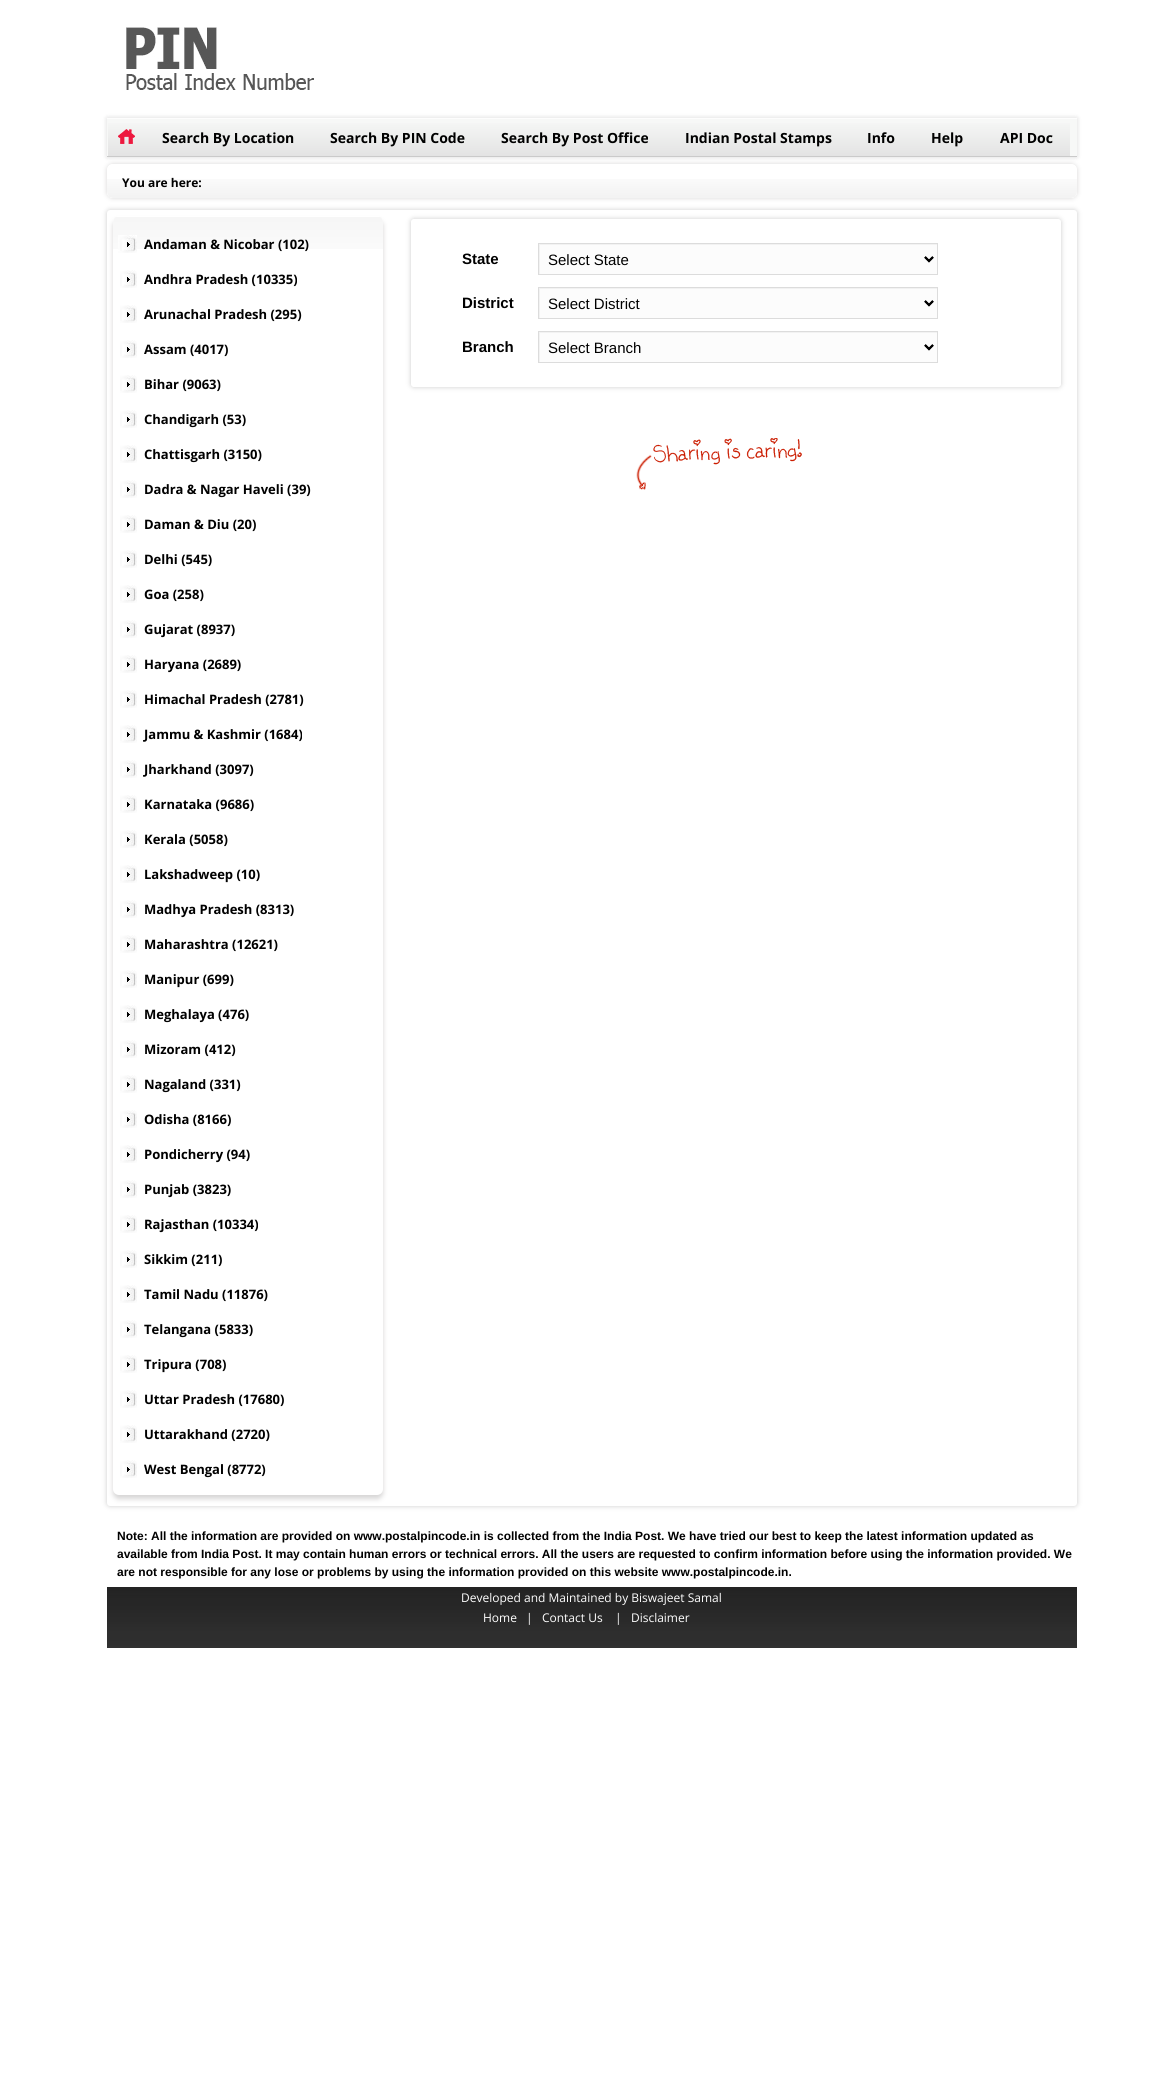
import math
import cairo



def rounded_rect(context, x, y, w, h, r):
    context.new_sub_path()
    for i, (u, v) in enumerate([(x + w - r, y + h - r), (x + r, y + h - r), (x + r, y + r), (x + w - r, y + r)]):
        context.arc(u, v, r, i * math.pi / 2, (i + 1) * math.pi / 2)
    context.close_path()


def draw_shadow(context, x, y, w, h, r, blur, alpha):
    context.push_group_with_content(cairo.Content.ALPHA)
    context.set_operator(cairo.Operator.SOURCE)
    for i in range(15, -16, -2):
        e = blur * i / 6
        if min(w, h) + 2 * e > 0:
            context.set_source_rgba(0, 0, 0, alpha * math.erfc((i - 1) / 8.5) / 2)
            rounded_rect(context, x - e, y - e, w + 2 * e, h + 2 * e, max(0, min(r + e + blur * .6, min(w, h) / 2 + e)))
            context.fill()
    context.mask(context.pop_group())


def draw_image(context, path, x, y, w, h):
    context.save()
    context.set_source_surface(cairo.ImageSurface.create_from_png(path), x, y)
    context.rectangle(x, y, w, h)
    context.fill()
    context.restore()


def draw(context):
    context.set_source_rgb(1, 1, 1)
    context.paint()
    draw_image(context, "images/1.png", 126, 27, 188, 63)
    context.set_source_rgb(0, 0, 0)
    draw_shadow(context, 107, 118, 970, 39, 0, 2.5, 0.15)
    context.set_source_rgb(247 / 255, 248 / 255, 247 / 255)
    context.rectangle(107, 119, 970, 37)
    context.fill()
    context.set_source_rgb(253 / 255, 253 / 255, 253 / 255)
    context.rectangle(107, 118, 970, 1)
    context.fill()
    context.set_source_rgb(202 / 255, 202 / 255, 202 / 255)
    context.rectangle(107, 156, 970, 1)
    context.fill()
    context.save()
    context.set_fill_rule(cairo.FillRule.EVEN_ODD)
    context.new_path()
    context.move_to(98, 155)
    context.line_to(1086, 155)
    context.line_to(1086, 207)
    context.line_to(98, 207)
    context.close_path()
    context.move_to(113, 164)
    context.line_to(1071, 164)
    context.curve_to(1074.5, 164, 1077, 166.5, 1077, 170)
    context.line_to(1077, 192)
    context.curve_to(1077, 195.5, 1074.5, 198, 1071, 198)
    context.line_to(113, 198)
    context.curve_to(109.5, 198, 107, 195.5, 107, 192)
    context.line_to(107, 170)
    context.curve_to(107, 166.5, 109.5, 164, 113, 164)
    context.close_path()
    context.clip()
    context.set_source_rgb(215 / 255, 214 / 255, 214 / 255)
    draw_shadow(context, 107, 164, 970, 34, 6, 2.5, 1)
    context.restore()
    gradient = cairo.LinearGradient(126, 119, 126, 156)
    gradient.add_color_stop_rgba(0, 247 / 255, 248 / 255, 247 / 255, 1)
    gradient.add_color_stop_rgba(1, 227 / 255, 227 / 255, 227 / 255, 1)
    context.set_source(gradient)
    context.rectangle(108, 123, 36, 33)
    context.fill()
    draw_image(context, "images/2.png", 118, 129, 17, 15)
    gradient = cairo.LinearGradient(228, 119, 228, 156)
    gradient.add_color_stop_rgba(0, 247 / 255, 248 / 255, 247 / 255, 1)
    gradient.add_color_stop_rgba(1, 227 / 255, 227 / 255, 227 / 255, 1)
    context.set_source(gradient)
    context.rectangle(144, 123, 168, 33)
    context.fill()
    gradient = cairo.LinearGradient(398, 119, 398, 156)
    gradient.add_color_stop_rgba(0, 247 / 255, 248 / 255, 247 / 255, 1)
    gradient.add_color_stop_rgba(1, 227 / 255, 227 / 255, 227 / 255, 1)
    context.set_source(gradient)
    context.rectangle(312, 123, 171, 33)
    context.fill()
    gradient = cairo.LinearGradient(575, 119, 575, 156)
    gradient.add_color_stop_rgba(0, 247 / 255, 248 / 255, 247 / 255, 1)
    gradient.add_color_stop_rgba(1, 227 / 255, 227 / 255, 227 / 255, 1)
    context.set_source(gradient)
    context.rectangle(483, 123, 184, 33)
    context.fill()
    gradient = cairo.LinearGradient(758, 119, 758, 156)
    gradient.add_color_stop_rgba(0, 247 / 255, 248 / 255, 247 / 255, 1)
    gradient.add_color_stop_rgba(1, 227 / 255, 227 / 255, 227 / 255, 1)
    context.set_source(gradient)
    context.rectangle(667, 123, 182, 33)
    context.fill()
    gradient = cairo.LinearGradient(881, 119, 881, 156)
    gradient.add_color_stop_rgba(0, 247 / 255, 248 / 255, 247 / 255, 1)
    gradient.add_color_stop_rgba(1, 227 / 255, 227 / 255, 227 / 255, 1)
    context.set_source(gradient)
    context.rectangle(849, 123, 64, 33)
    context.fill()
    gradient = cairo.LinearGradient(948, 119, 948, 156)
    gradient.add_color_stop_rgba(0, 247 / 255, 248 / 255, 247 / 255, 1)
    gradient.add_color_stop_rgba(1, 227 / 255, 227 / 255, 227 / 255, 1)
    context.set_source(gradient)
    context.rectangle(913, 123, 69, 33)
    context.fill()
    gradient = cairo.LinearGradient(1026, 119, 1026, 156)
    gradient.add_color_stop_rgba(0, 247 / 255, 248 / 255, 247 / 255, 1)
    gradient.add_color_stop_rgba(1, 227 / 255, 227 / 255, 227 / 255, 1)
    context.set_source(gradient)
    context.rectangle(982, 123, 88, 33)
    context.fill()
    draw_image(context, "images/3.png", 107, 179, 970, 19)
    context.set_source_rgb(204 / 255, 204 / 255, 204 / 255)
    draw_shadow(context, 107, 210, 970, 1296, 3, 2.5, 1)
    context.set_source_rgb(1, 1, 1)
    rounded_rect(context, 107, 210, 970, 1296, 3)
    context.fill()
    context.set_source_rgb(215 / 255, 214 / 255, 214 / 255)
    draw_shadow(context, 113, 220, 270, 1279, 6, 2.5, 1)
    context.set_source_rgb(1, 1, 1)
    rounded_rect(context, 113, 216, 270, 1279, 6)
    context.fill()
    draw_image(context, "images/4.png", 113, 217, 270, 32)
    draw_image(context, "images/5.png", 118, 235, 19, 18)
    draw_image(context, "images/6.png", 120, 270, 17, 18)
    draw_image(context, "images/6.png", 120, 305, 17, 18)
    draw_image(context, "images/6.png", 120, 340, 17, 18)
    draw_image(context, "images/6.png", 120, 375, 17, 18)
    draw_image(context, "images/6.png", 120, 410, 17, 18)
    draw_image(context, "images/6.png", 120, 445, 17, 18)
    draw_image(context, "images/6.png", 120, 480, 17, 18)
    draw_image(context, "images/6.png", 120, 515, 17, 18)
    draw_image(context, "images/6.png", 120, 550, 17, 18)
    draw_image(context, "images/6.png", 120, 585, 17, 18)
    draw_image(context, "images/6.png", 120, 620, 17, 18)
    draw_image(context, "images/6.png", 120, 655, 17, 18)
    draw_image(context, "images/6.png", 120, 690, 17, 18)
    draw_image(context, "images/6.png", 120, 725, 17, 18)
    draw_image(context, "images/6.png", 120, 760, 17, 18)
    draw_image(context, "images/6.png", 120, 795, 17, 18)
    draw_image(context, "images/6.png", 120, 830, 17, 18)
    draw_image(context, "images/6.png", 120, 865, 17, 18)
    draw_image(context, "images/6.png", 120, 900, 17, 18)
    draw_image(context, "images/6.png", 120, 935, 17, 18)
    draw_image(context, "images/6.png", 120, 970, 17, 18)
    draw_image(context, "images/6.png", 120, 1005, 17, 18)
    draw_image(context, "images/6.png", 120, 1040, 17, 18)
    draw_image(context, "images/6.png", 120, 1075, 17, 18)
    draw_image(context, "images/6.png", 120, 1110, 17, 18)
    draw_image(context, "images/6.png", 120, 1145, 17, 18)
    draw_image(context, "images/6.png", 120, 1180, 17, 18)
    draw_image(context, "images/6.png", 120, 1215, 17, 18)
    draw_image(context, "images/6.png", 120, 1250, 17, 18)
    draw_image(context, "images/6.png", 120, 1285, 17, 18)
    draw_image(context, "images/6.png", 120, 1320, 17, 18)
    draw_image(context, "images/6.png", 120, 1355, 17, 18)
    draw_image(context, "images/6.png", 120, 1390, 17, 18)
    draw_image(context, "images/6.png", 120, 1425, 17, 18)
    draw_image(context, "images/6.png", 120, 1460, 17, 18)
    context.save()
    context.set_fill_rule(cairo.FillRule.EVEN_ODD)
    context.new_path()
    context.move_to(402, 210)
    context.line_to(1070, 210)
    context.line_to(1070, 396)
    context.line_to(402, 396)
    context.close_path()
    context.move_to(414, 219)
    context.line_to(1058, 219)
    context.curve_to(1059.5, 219, 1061, 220.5, 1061, 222)
    context.line_to(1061, 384)
    context.curve_to(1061, 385.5, 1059.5, 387, 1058, 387)
    context.line_to(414, 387)
    context.curve_to(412.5, 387, 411, 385.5, 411, 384)
    context.line_to(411, 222)
    context.curve_to(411, 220.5, 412.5, 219, 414, 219)
    context.close_path()
    context.clip()
    context.set_source_rgb(204 / 255, 204 / 255, 204 / 255)
    draw_shadow(context, 411, 219, 650, 168, 3, 2.5, 1)
    context.restore()
    draw_image(context, "images/7.png", 539, 244, 398, 30)
    context.rectangle(538.5, 243.5, 399, 31)
    context.set_source_rgb(220 / 255, 220 / 255, 220 / 255)
    context.set_line_width(1)
    context.stroke()
    context.new_path()
    context.move_to(925, 257)
    context.line_to(929, 261)
    context.line_to(933, 257)
    context.set_source_rgb(0, 0, 0)
    context.set_line_width(2)
    context.stroke()
    draw_image(context, "images/7.png", 539, 288, 398, 30)
    context.rectangle(538.5, 287.5, 399, 31)
    context.set_source_rgb(220 / 255, 220 / 255, 220 / 255)
    context.set_line_width(1)
    context.stroke()
    context.new_path()
    context.move_to(925, 301)
    context.line_to(929, 305)
    context.line_to(933, 301)
    context.set_source_rgb(0, 0, 0)
    context.set_line_width(2)
    context.stroke()
    draw_image(context, "images/7.png", 539, 332, 398, 30)
    context.rectangle(538.5, 331.5, 399, 31)
    context.set_source_rgb(220 / 255, 220 / 255, 220 / 255)
    context.set_line_width(1)
    context.stroke()
    context.new_path()
    context.move_to(925, 345)
    context.line_to(929, 349)
    context.line_to(933, 345)
    context.set_source_rgb(0, 0, 0)
    context.set_line_width(2)
    context.stroke()
    draw_image(context, "images/8.png", 636, 438, 166, 52)
    draw_image(context, "images/9.png", 107, 1587, 970, 61)
    context.select_font_face("Open Sans", cairo.FontSlant.NORMAL, cairo.FontWeight.BOLD)
    context.set_font_size(14)
    context.move_to(162, 143)
    context.show_text("Search By Location")
    context.move_to(330, 143)
    context.show_text("Search By PIN Code")
    context.move_to(501, 143)
    context.show_text("Search By Post Office")
    context.move_to(685, 143)
    context.show_text("Indian Postal Stamps")
    context.move_to(867, 143)
    context.show_text("Info")
    context.move_to(931, 143)
    context.show_text("Help")
    context.move_to(1000, 143)
    context.show_text("API Doc")
    context.set_font_size(12)
    context.move_to(122, 187)
    context.show_text("You are here:")
    context.set_font_size(13)
    context.move_to(144, 249)
    context.show_text("Andaman & Nicobar (102)")
    context.move_to(144, 284)
    context.show_text("Andhra Pradesh (10335)")
    context.move_to(144, 319)
    context.show_text("Arunachal Pradesh (295)")
    context.move_to(144, 354)
    context.show_text("Assam (4017)")
    context.move_to(144, 389)
    context.show_text("Bihar (9063)")
    context.move_to(144, 424)
    context.show_text("Chandigarh (53)")
    context.move_to(144, 459)
    context.show_text("Chattisgarh (3150)")
    context.move_to(144, 494)
    context.show_text("Dadra & Nagar Haveli (39)")
    context.move_to(144, 529)
    context.show_text("Daman & Diu (20)")
    context.move_to(144, 564)
    context.show_text("Delhi (545)")
    context.move_to(144, 599)
    context.show_text("Goa (258)")
    context.move_to(144, 634)
    context.show_text("Gujarat (8937)")
    context.move_to(144, 669)
    context.show_text("Haryana (2689)")
    context.move_to(144, 704)
    context.show_text("Himachal Pradesh (2781)")
    context.move_to(144, 739)
    context.show_text("Jammu & Kashmir (1684)")
    context.move_to(144, 774)
    context.show_text("Jharkhand (3097)")
    context.move_to(144, 809)
    context.show_text("Karnataka (9686)")
    context.move_to(144, 844)
    context.show_text("Kerala (5058)")
    context.move_to(144, 879)
    context.show_text("Lakshadweep (10)")
    context.move_to(144, 914)
    context.show_text("Madhya Pradesh (8313)")
    context.move_to(144, 949)
    context.show_text("Maharashtra (12621)")
    context.move_to(144, 984)
    context.show_text("Manipur (699)")
    context.move_to(144, 1019)
    context.show_text("Meghalaya (476)")
    context.move_to(144, 1054)
    context.show_text("Mizoram (412)")
    context.move_to(144, 1089)
    context.show_text("Nagaland (331)")
    context.move_to(144, 1124)
    context.show_text("Odisha (8166)")
    context.move_to(144, 1159)
    context.show_text("Pondicherry (94)")
    context.move_to(144, 1194)
    context.show_text("Punjab (3823)")
    context.move_to(144, 1229)
    context.show_text("Rajasthan (10334)")
    context.move_to(144, 1264)
    context.show_text("Sikkim (211)")
    context.move_to(144, 1299)
    context.show_text("Tamil Nadu (11876)")
    context.move_to(144, 1334)
    context.show_text("Telangana (5833)")
    context.move_to(144, 1369)
    context.show_text("Tripura (708)")
    context.move_to(144, 1404)
    context.show_text("Uttar Pradesh (17680)")
    context.move_to(144, 1439)
    context.show_text("Uttarakhand (2720)")
    context.move_to(144, 1474)
    context.show_text("West Bengal (8772)")
    context.select_font_face("Liberation Sans", cairo.FontSlant.NORMAL, cairo.FontWeight.BOLD)
    context.set_font_size(15)
    context.move_to(462, 264)
    context.show_text("State")
    context.select_font_face("Liberation Sans")
    context.move_to(548, 265)
    context.show_text("Select State")
    context.select_font_face("Liberation Sans", cairo.FontSlant.NORMAL, cairo.FontWeight.BOLD)
    context.move_to(462, 308)
    context.show_text("District")
    context.select_font_face("Liberation Sans")
    context.move_to(548, 309)
    context.show_text("Select District")
    context.select_font_face("Liberation Sans", cairo.FontSlant.NORMAL, cairo.FontWeight.BOLD)
    context.move_to(462, 352)
    context.show_text("Branch")
    context.select_font_face("Liberation Sans")
    context.move_to(548, 353)
    context.show_text("Select Branch")
    context.select_font_face("Liberation Sans", cairo.FontSlant.NORMAL, cairo.FontWeight.BOLD)
    context.set_font_size(12)
    context.move_to(117, 1540)
    context.show_text("Note: All the information are provided on www.postalpincode.in is collected from the India Post. We have tried our best to keep the latest information updated as")
    context.move_to(117, 1558)
    context.show_text("available from India Post. It may contain human errors or technical errors. All the users are requested to confirm information before using the information provided. We")
    context.move_to(117, 1576)
    context.show_text("are not responsible for any lose or problems by using the information provided on this website www.postalpincode.in.")
    context.select_font_face("Open Sans")
    context.set_source_rgb(1, 1, 1)
    context.move_to(461, 1602)
    context.show_text("Developed and Maintained by Biswajeet Samal")
    context.move_to(483, 1622)
    context.show_text("Home")
    context.move_to(526, 1622)
    context.show_text("|   Contact Us")
    context.move_to(615, 1622)
    context.show_text("|   Disclaimer")


surface = cairo.ImageSurface(cairo.Format.RGB24, 1171, 2088)
context = cairo.Context(surface)
options = cairo.FontOptions()
options.set_hint_metrics(cairo.HintMetrics.OFF)
options.set_hint_style(cairo.HintStyle.NONE)
context.set_font_options(options)
context.set_miter_limit(4)
draw(context)
surface.write_to_png("out.png")
